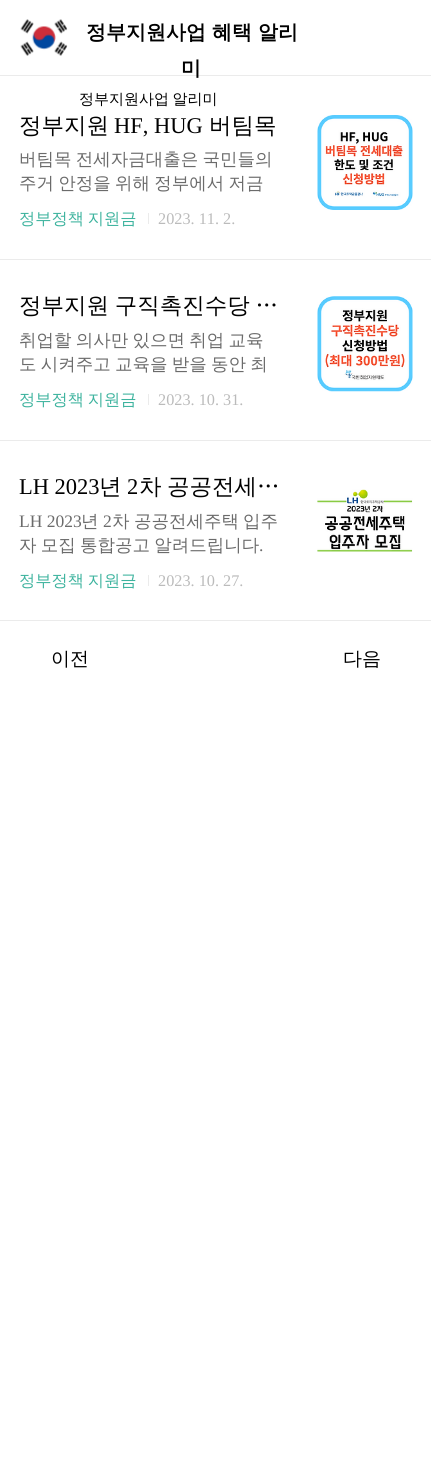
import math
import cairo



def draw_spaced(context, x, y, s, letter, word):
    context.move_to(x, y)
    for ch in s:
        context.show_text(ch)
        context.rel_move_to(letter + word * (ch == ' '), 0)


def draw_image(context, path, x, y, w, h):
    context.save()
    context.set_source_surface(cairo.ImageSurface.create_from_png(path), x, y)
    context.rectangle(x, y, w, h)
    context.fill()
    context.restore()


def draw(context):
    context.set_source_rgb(1, 1, 1)
    context.paint()
    context.set_source_rgb(235 / 255, 235 / 255, 235 / 255)
    context.rectangle(0, 75, 431, 1)
    context.fill()
    draw_image(context, "images/1.png", 20, 19, 48, 37)
    context.rectangle(0, 259, 431, 1)
    context.fill()
    draw_image(context, "images/2.png", 317, 115, 96, 95)
    context.rectangle(148, 213, 1, 11)
    context.fill()
    context.rectangle(0, 440, 431, 1)
    context.fill()
    draw_image(context, "images/3.png", 317, 296, 96, 96)
    context.rectangle(148, 394, 1, 11)
    context.fill()
    context.rectangle(0, 620, 431, 1)
    context.fill()
    draw_image(context, "images/4.png", 317, 489, 96, 63)
    context.rectangle(148, 575, 1, 11)
    context.fill()
    context.select_font_face("WenQuanYi Zen Hei", cairo.FontSlant.NORMAL, cairo.FontWeight.BOLD)
    context.set_font_size(20)
    context.set_source_rgb(0, 0, 0)
    context.move_to(86, 39)
    context.show_text("정부지원사업 혜택 알리")
    context.move_to(181, 75)
    context.show_text("미")
    context.select_font_face("WenQuanYi Zen Hei Medium")
    context.set_font_size(15)
    draw_spaced(context, 79, 104, "정부지원사업 알리미", 0, -1)
    context.set_font_size(22.5)
    context.move_to(19, 133)
    context.show_text("정부지원")
    context.select_font_face("Liberation Serif")
    context.move_to(114, 133)
    context.show_text("HF, HUG")
    context.select_font_face("WenQuanYi Zen Hei Medium")
    context.move_to(209, 133)
    context.show_text("버팀목")
    context.set_font_size(17.5)
    context.set_source_rgb(107 / 255, 107 / 255, 107 / 255)
    draw_spaced(context, 19, 165, "버팀목 전세자금대출은 국민들의", 0, -1)
    draw_spaced(context, 19, 189, "주거 안정을 위해 정부에서 저금", 0, -1)
    context.set_font_size(16.25)
    context.set_source_rgb(61 / 255, 179 / 255, 158 / 255)
    draw_spaced(context, 19, 224, "정부정책 지원금", 0, -1)
    context.select_font_face("Liberation Serif")
    context.set_source_rgb(187 / 255, 187 / 255, 187 / 255)
    context.move_to(158, 224)
    context.show_text("2023. 11. 2.")
    context.select_font_face("WenQuanYi Zen Hei Medium")
    context.set_font_size(22.5)
    context.set_source_rgb(0, 0, 0)
    draw_spaced(context, 19, 313, "정부지원 구직촉진수당 …", 0, -1)
    context.set_font_size(17.5)
    context.set_source_rgb(107 / 255, 107 / 255, 107 / 255)
    draw_spaced(context, 19, 346, "취업할 의사만 있으면 취업 교육", 0, -1)
    draw_spaced(context, 19, 370, "도 시켜주고 교육을 받을 동안 최", 0, -1)
    context.set_font_size(16.25)
    context.set_source_rgb(61 / 255, 179 / 255, 158 / 255)
    draw_spaced(context, 19, 405, "정부정책 지원금", 0, -1)
    context.select_font_face("Liberation Serif")
    context.set_source_rgb(187 / 255, 187 / 255, 187 / 255)
    context.move_to(158, 405)
    context.show_text("2023. 10. 31.")
    context.set_font_size(22.5)
    context.set_source_rgb(0, 0, 0)
    context.move_to(19, 494)
    context.show_text("LH 2023")
    context.select_font_face("WenQuanYi Zen Hei Medium")
    context.move_to(99, 494)
    context.show_text("년")
    context.select_font_face("Liberation Serif")
    context.move_to(127, 494)
    context.show_text("2")
    context.select_font_face("WenQuanYi Zen Hei Medium")
    context.move_to(139, 494)
    context.show_text("차")
    context.move_to(167, 494)
    context.show_text("공공전세…")
    context.select_font_face("Liberation Serif")
    context.set_font_size(17.5)
    context.set_source_rgb(107 / 255, 107 / 255, 107 / 255)
    context.move_to(19, 527)
    context.show_text("LH 2023")
    context.select_font_face("WenQuanYi Zen Hei Medium")
    context.move_to(81, 527)
    context.show_text("년")
    context.select_font_face("Liberation Serif")
    context.move_to(103, 527)
    context.show_text("2")
    context.select_font_face("WenQuanYi Zen Hei Medium")
    context.move_to(112, 527)
    context.show_text("차")
    context.move_to(134, 527)
    context.show_text("공공전세주택")
    context.move_to(243, 527)
    context.show_text("입주")
    draw_spaced(context, 19, 551, "자 모집 통합공고 알려드립니다", 0, -1)
    context.select_font_face("Liberation Serif")
    context.move_to(259, 551)
    context.show_text(".")
    context.select_font_face("WenQuanYi Zen Hei Medium")
    context.set_font_size(16.25)
    context.set_source_rgb(61 / 255, 179 / 255, 158 / 255)
    draw_spaced(context, 19, 586, "정부정책 지원금", 0, -1)
    context.select_font_face("Liberation Serif")
    context.set_source_rgb(187 / 255, 187 / 255, 187 / 255)
    context.move_to(158, 586)
    context.show_text("2023. 10. 27.")
    context.select_font_face("WenQuanYi Zen Hei Medium")
    context.set_font_size(19)
    context.set_source_rgb(0, 0, 0)
    context.move_to(51, 665)
    context.show_text("이전")
    context.move_to(343, 665)
    context.show_text("다음")


surface = cairo.ImageSurface(cairo.Format.RGB24, 431, 1477)
context = cairo.Context(surface)
options = cairo.FontOptions()
options.set_hint_metrics(cairo.HintMetrics.OFF)
options.set_hint_style(cairo.HintStyle.NONE)
context.set_font_options(options)
context.set_miter_limit(4)
draw(context)
surface.write_to_png("out.png")
